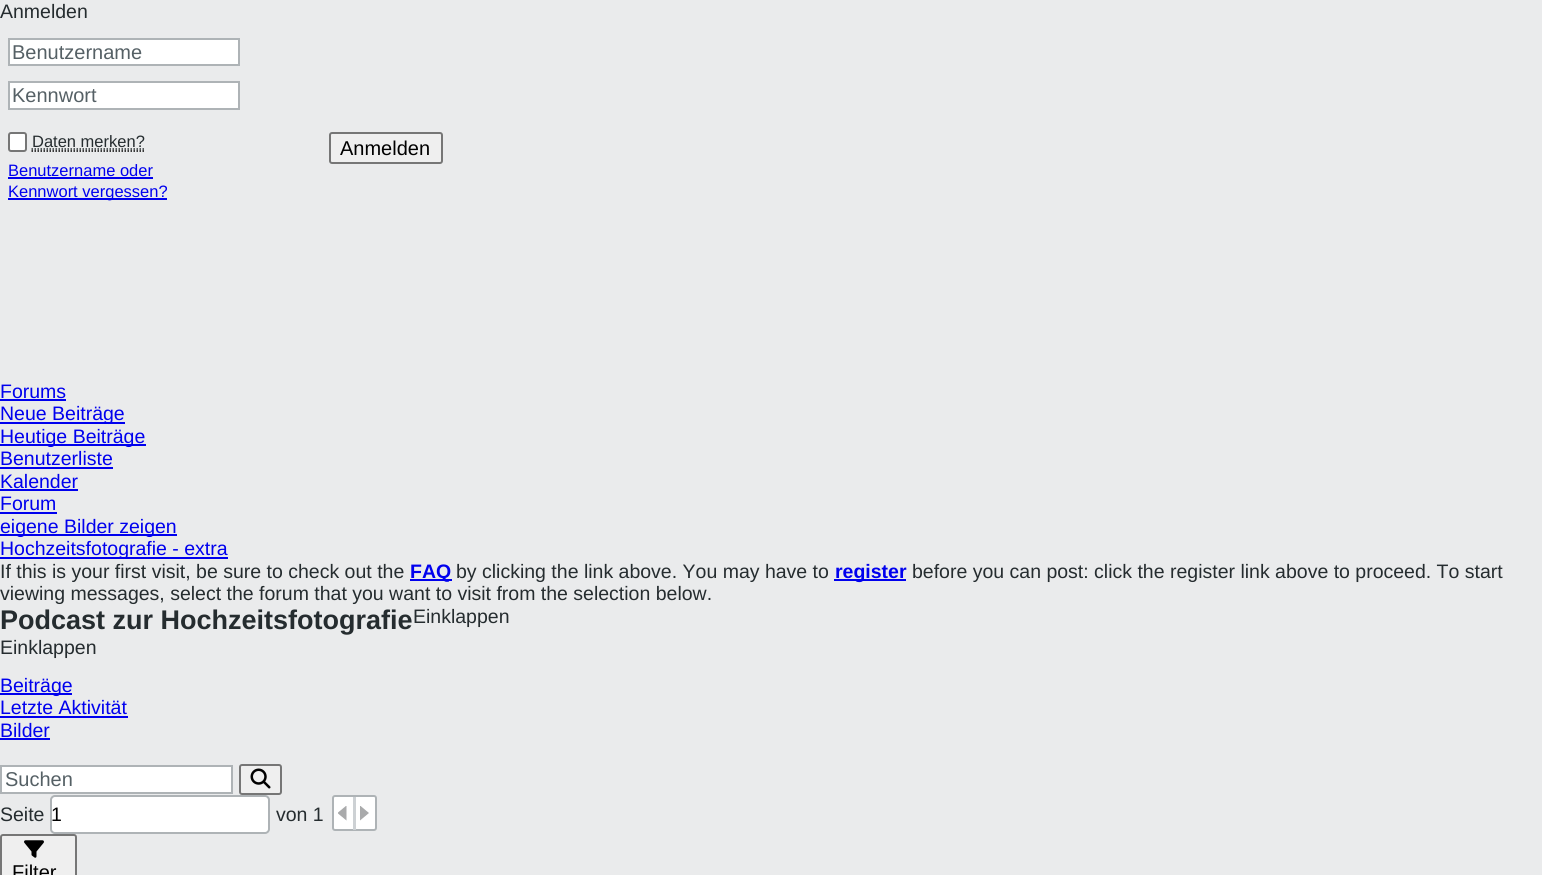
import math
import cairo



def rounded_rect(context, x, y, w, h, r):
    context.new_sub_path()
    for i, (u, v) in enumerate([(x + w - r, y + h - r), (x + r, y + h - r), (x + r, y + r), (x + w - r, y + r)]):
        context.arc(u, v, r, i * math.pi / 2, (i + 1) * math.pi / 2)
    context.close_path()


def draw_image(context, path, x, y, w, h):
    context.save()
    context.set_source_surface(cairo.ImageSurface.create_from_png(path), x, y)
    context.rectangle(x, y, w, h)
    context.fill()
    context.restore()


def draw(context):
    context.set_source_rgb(234 / 255, 235 / 255, 236 / 255)
    context.paint()
    context.set_source_rgb(1, 1, 1)
    context.rectangle(9, 39, 230, 26)
    context.fill_preserve()
    context.set_source_rgb(174 / 255, 179 / 255, 182 / 255)
    context.stroke()
    context.set_source_rgb(1, 1, 1)
    context.rectangle(9, 82, 230, 27)
    context.fill_preserve()
    context.set_source_rgb(174 / 255, 179 / 255, 182 / 255)
    context.stroke()
    context.set_source_rgb(1, 1, 1)
    rounded_rect(context, 9, 133, 17, 18, 2)
    context.fill_preserve()
    context.set_source_rgb(118 / 255, 118 / 255, 118 / 255)
    context.stroke()
    context.new_path()
    context.move_to(31.5, 151)
    context.line_to(144, 151)
    context.set_source_rgb(0, 0, 0)
    context.set_line_width(1.5)
    context.set_dash([1.5, 1.5])
    context.stroke()
    context.new_path()
    context.move_to(31.5, 149)
    context.line_to(144.5, 149)
    context.set_source_rgb(37 / 255, 44 / 255, 47 / 255)
    context.stroke()
    context.set_source_rgb(239 / 255, 239 / 255, 239 / 255)
    rounded_rect(context, 330, 133, 112, 30, 2)
    context.fill_preserve()
    context.set_source_rgb(118 / 255, 118 / 255, 118 / 255)
    context.set_line_width(2)
    context.set_dash([])
    context.stroke()
    context.set_source_rgb(0, 0, 238 / 255)
    context.rectangle(8, 177, 145, 2)
    context.fill()
    context.rectangle(8, 198, 159, 2)
    context.fill()
    context.rectangle(0, 399, 66, 2)
    context.fill()
    context.rectangle(0, 422, 125, 2)
    context.fill()
    context.rectangle(0, 444, 146, 2)
    context.fill()
    context.rectangle(0, 467, 113, 2)
    context.fill()
    context.rectangle(0, 489, 78, 2)
    context.fill()
    context.rectangle(0, 512, 57, 2)
    context.fill()
    context.rectangle(0, 534, 177, 2)
    context.fill()
    context.rectangle(0, 557, 228, 2)
    context.fill()
    context.rectangle(410, 579, 42, 2)
    context.fill()
    context.rectangle(834, 579, 72, 2)
    context.fill()
    context.rectangle(0, 693, 72, 2)
    context.fill()
    context.rectangle(0, 716, 128, 2)
    context.fill()
    context.rectangle(0, 738, 50, 2)
    context.fill()
    context.set_source_rgb(1, 1, 1)
    context.rectangle(1, 766, 231, 27)
    context.fill_preserve()
    context.set_source_rgb(174 / 255, 179 / 255, 182 / 255)
    context.stroke()
    context.set_source_rgb(239 / 255, 239 / 255, 239 / 255)
    rounded_rect(context, 240, 765, 41, 29, 2)
    context.fill_preserve()
    context.set_source_rgb(118 / 255, 118 / 255, 118 / 255)
    context.stroke()
    draw_image(context, "images/1.png", 250, 768, 21, 21)
    context.set_source_rgb(1, 1, 1)
    rounded_rect(context, 51, 796, 218, 37, 4)
    context.fill_preserve()
    context.set_source_rgb(174 / 255, 179 / 255, 182 / 255)
    context.stroke()
    context.set_source_rgb(1, 1, 1)
    rounded_rect(context, 333, 796, 43, 34, 2)
    context.fill_preserve()
    context.set_source_rgb(174 / 255, 179 / 255, 182 / 255)
    context.stroke()
    context.set_source_rgb(205 / 255, 209 / 255, 212 / 255)
    context.rectangle(353, 797, 3, 33)
    context.fill()
    draw_image(context, "images/2.png", 338, 806, 9, 15)
    draw_image(context, "images/3.png", 360, 806, 9, 15)
    context.set_source_rgb(239 / 255, 239 / 255, 239 / 255)
    rounded_rect(context, 1, 835, 75, 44, 2)
    context.fill_preserve()
    context.set_source_rgb(118 / 255, 118 / 255, 118 / 255)
    context.stroke()
    draw_image(context, "images/4.png", 24, 840, 20, 18)
    context.select_font_face("Liberation Sans")
    context.set_font_size(19.5)
    context.set_source_rgb(37 / 255, 44 / 255, 47 / 255)
    context.move_to(0, 18)
    context.show_text("Anmelden")
    context.set_font_size(20)
    context.set_source_rgb(85 / 255, 96 / 255, 101 / 255)
    context.move_to(12, 59)
    context.show_text("Benutzername")
    context.move_to(12, 102)
    context.show_text("Kennwort")
    context.set_font_size(16.5)
    context.set_source_rgb(37 / 255, 44 / 255, 47 / 255)
    context.move_to(32, 147)
    context.show_text("Daten merken?")
    context.set_font_size(20)
    context.set_source_rgb(0, 0, 0)
    context.move_to(340, 155)
    context.show_text("Anmelden")
    context.set_font_size(16.5)
    context.set_source_rgb(0, 0, 238 / 255)
    context.move_to(8, 176)
    context.show_text("Benutzername oder")
    context.move_to(8, 197)
    context.show_text("Kennwort vergessen?")
    context.set_font_size(19.5)
    context.move_to(0, 398)
    context.show_text("Forums")
    context.move_to(0, 420)
    context.show_text("Neue Beiträge")
    context.move_to(0, 443)
    context.show_text("Heutige Beiträge")
    context.move_to(0, 465)
    context.show_text("Benutzerliste")
    context.move_to(0, 488)
    context.show_text("Kalender")
    context.move_to(0, 510)
    context.show_text("Forum")
    context.move_to(0, 533)
    context.show_text("eigene Bilder zeigen")
    context.move_to(0, 555)
    context.show_text("Hochzeitsfotografie - extra")
    context.set_source_rgb(37 / 255, 44 / 255, 47 / 255)
    context.move_to(0, 578)
    context.show_text("If this is your first visit, be sure to check out the")
    context.select_font_face("Liberation Sans", cairo.FontSlant.NORMAL, cairo.FontWeight.BOLD)
    context.set_source_rgb(0, 0, 238 / 255)
    context.move_to(410, 578)
    context.show_text("FAQ")
    context.select_font_face("Liberation Sans")
    context.set_source_rgb(37 / 255, 44 / 255, 47 / 255)
    context.move_to(456, 578)
    context.show_text("by clicking the link above. You may have to")
    context.select_font_face("Liberation Sans", cairo.FontSlant.NORMAL, cairo.FontWeight.BOLD)
    context.set_source_rgb(0, 0, 238 / 255)
    context.move_to(835, 578)
    context.show_text("register")
    context.select_font_face("Liberation Sans")
    context.set_source_rgb(37 / 255, 44 / 255, 47 / 255)
    context.move_to(912, 578)
    context.show_text("before you can post: click the register link above to proceed. To start")
    context.move_to(0, 600)
    context.show_text("viewing messages, select the forum that you want to visit from the selection below.")
    context.select_font_face("Liberation Sans", cairo.FontSlant.NORMAL, cairo.FontWeight.BOLD)
    context.set_font_size(27)
    context.move_to(0, 629)
    context.show_text("Podcast zur Hochzeitsfotografie")
    context.select_font_face("Liberation Sans")
    context.set_font_size(19.5)
    context.move_to(413, 623)
    context.show_text("Einklappen")
    context.move_to(0, 654)
    context.show_text("Einklappen")
    context.set_source_rgb(0, 0, 238 / 255)
    context.move_to(0, 692)
    context.show_text("Beiträge")
    context.move_to(0, 714)
    context.show_text("Letzte Aktivität")
    context.move_to(0, 737)
    context.show_text("Bilder")
    context.set_font_size(20)
    context.set_source_rgb(85 / 255, 96 / 255, 101 / 255)
    context.move_to(5, 786)
    context.show_text("Suchen")
    context.set_font_size(19.5)
    context.set_source_rgb(37 / 255, 44 / 255, 47 / 255)
    context.move_to(0, 821)
    context.show_text("Seite")
    context.set_source_rgb(0, 0, 0)
    context.move_to(51, 821)
    context.show_text("1")
    context.set_source_rgb(37 / 255, 44 / 255, 47 / 255)
    context.move_to(276, 821)
    context.show_text("von 1")
    context.set_font_size(20)
    context.set_source_rgb(0, 0, 0)
    context.move_to(12, 879)
    context.show_text("Filter")


surface = cairo.ImageSurface(cairo.Format.RGB24, 1542, 875)
context = cairo.Context(surface)
options = cairo.FontOptions()
options.set_hint_metrics(cairo.HintMetrics.OFF)
options.set_hint_style(cairo.HintStyle.NONE)
context.set_font_options(options)
context.set_miter_limit(4)
draw(context)
surface.write_to_png("out.png")
